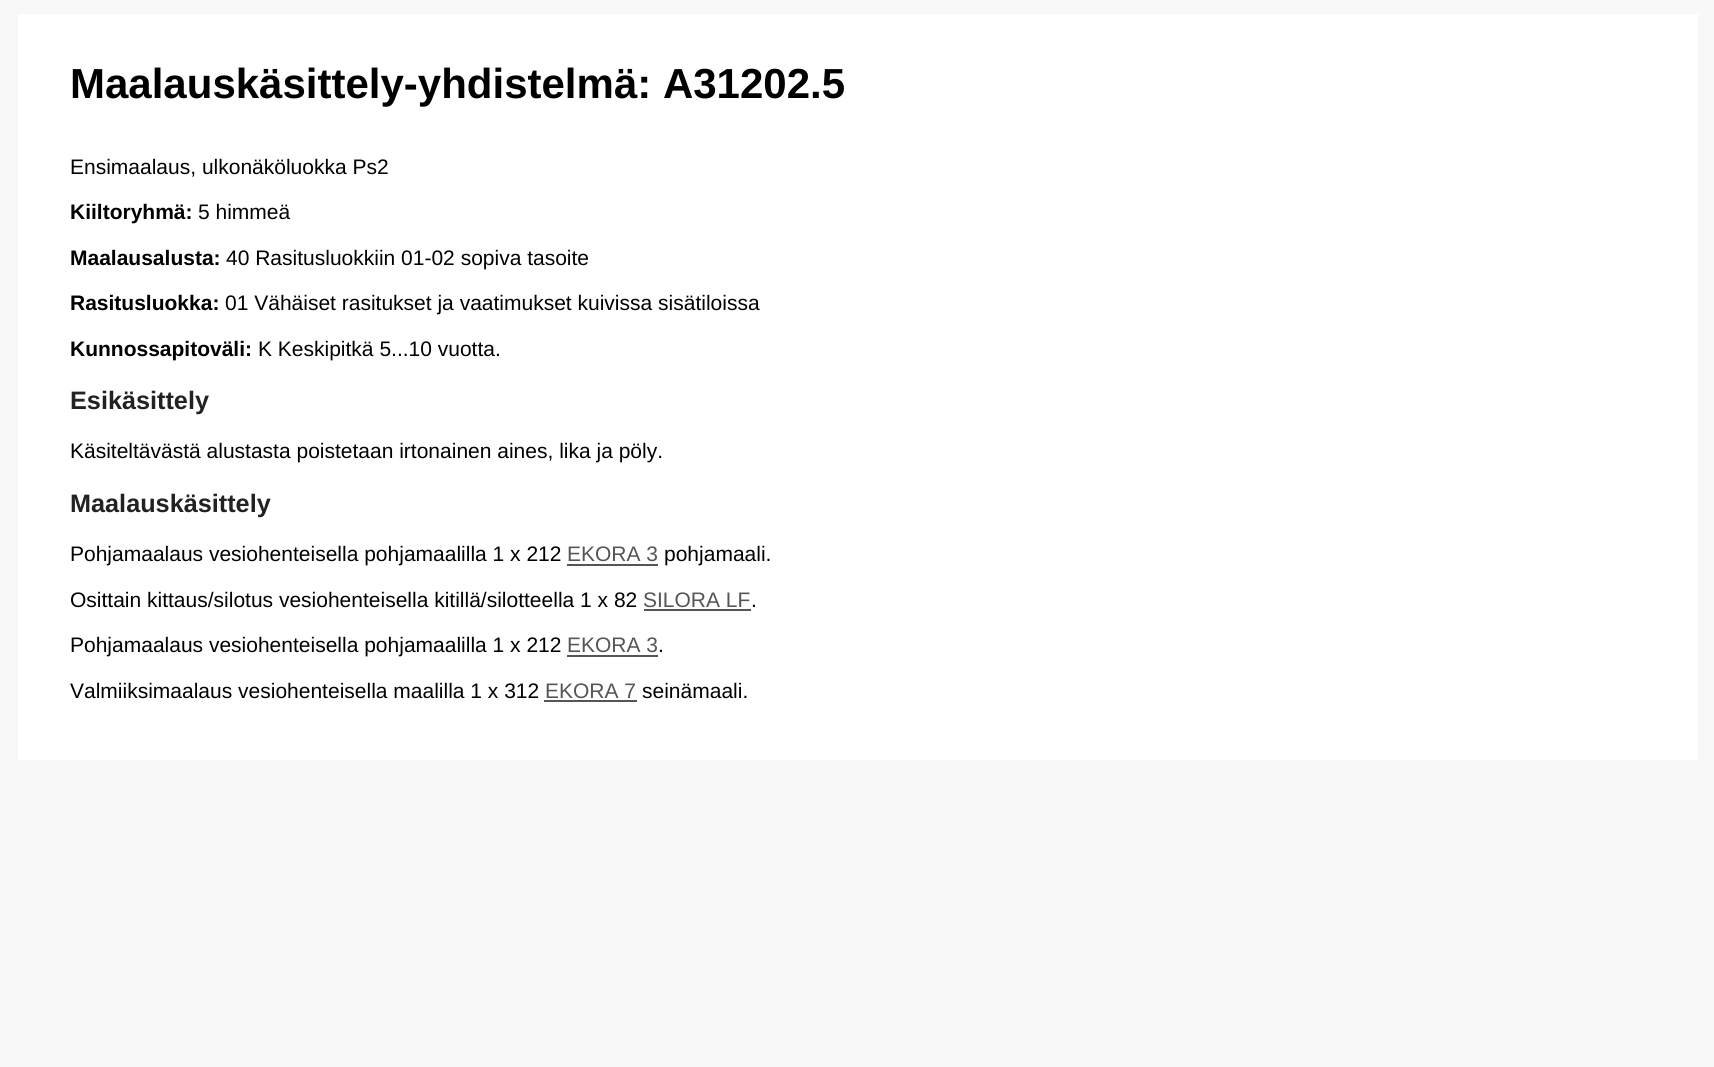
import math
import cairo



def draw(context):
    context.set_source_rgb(248 / 255, 248 / 255, 248 / 255)
    context.paint()
    context.set_source_rgb(1, 1, 1)
    context.rectangle(18, 14, 1680, 746)
    context.fill()
    context.set_source_rgb(85 / 255, 85 / 255, 85 / 255)
    context.rectangle(567, 564, 91, 2)
    context.fill()
    context.rectangle(644, 609, 107, 2)
    context.fill()
    context.rectangle(567, 655, 91, 2)
    context.fill()
    context.rectangle(544, 700, 93, 2)
    context.fill()
    context.select_font_face("Liberation Sans", cairo.FontSlant.NORMAL, cairo.FontWeight.BOLD)
    context.set_font_size(42)
    context.set_source_rgb(0, 0, 0)
    context.move_to(70, 98)
    context.show_text("Maalauskäsittely-yhdistelmä: A31202.5")
    context.select_font_face("Liberation Sans")
    context.set_font_size(21)
    context.move_to(70, 174)
    context.show_text("Ensimaalaus, ulkonäköluokka Ps2")
    context.select_font_face("Liberation Sans", cairo.FontSlant.NORMAL, cairo.FontWeight.BOLD)
    context.move_to(70, 219)
    context.show_text("Kiiltoryhmä:")
    context.select_font_face("Liberation Sans")
    context.move_to(198, 219)
    context.show_text("5 himmeä")
    context.select_font_face("Liberation Sans", cairo.FontSlant.NORMAL, cairo.FontWeight.BOLD)
    context.move_to(70, 265)
    context.show_text("Maalausalusta:")
    context.select_font_face("Liberation Sans")
    context.move_to(226, 265)
    context.show_text("40 Rasitusluokkiin 01-02 sopiva tasoite")
    context.select_font_face("Liberation Sans", cairo.FontSlant.NORMAL, cairo.FontWeight.BOLD)
    context.move_to(70, 310)
    context.show_text("Rasitusluokka:")
    context.select_font_face("Liberation Sans")
    context.move_to(225, 310)
    context.show_text("01 Vähäiset rasitukset ja vaatimukset kuivissa sisätiloissa")
    context.select_font_face("Liberation Sans", cairo.FontSlant.NORMAL, cairo.FontWeight.BOLD)
    context.move_to(70, 356)
    context.show_text("Kunnossapitoväli:")
    context.select_font_face("Liberation Sans")
    context.move_to(258, 356)
    context.show_text("K Keskipitkä 5...10 vuotta.")
    context.select_font_face("Liberation Sans", cairo.FontSlant.NORMAL, cairo.FontWeight.BOLD)
    context.set_font_size(25.25)
    context.set_source_rgb(34 / 255, 34 / 255, 34 / 255)
    context.move_to(70, 409)
    context.show_text("Esikäsittely")
    context.select_font_face("Liberation Sans")
    context.set_font_size(21)
    context.set_source_rgb(0, 0, 0)
    context.move_to(70, 458)
    context.show_text("Käsiteltävästä alustasta poistetaan irtonainen aines, lika ja pöly.")
    context.select_font_face("Liberation Sans", cairo.FontSlant.NORMAL, cairo.FontWeight.BOLD)
    context.set_font_size(25.25)
    context.set_source_rgb(34 / 255, 34 / 255, 34 / 255)
    context.move_to(70, 512)
    context.show_text("Maalauskäsittely")
    context.select_font_face("Liberation Sans")
    context.set_font_size(21)
    context.set_source_rgb(0, 0, 0)
    context.move_to(70, 561)
    context.show_text("Pohjamaalaus vesiohenteisella pohjamaalilla 1 x 212")
    context.set_source_rgb(85 / 255, 85 / 255, 85 / 255)
    context.move_to(567, 561)
    context.show_text("EKORA 3")
    context.set_source_rgb(0, 0, 0)
    context.move_to(664, 561)
    context.show_text("pohjamaali.")
    context.move_to(70, 607)
    context.show_text("Osittain kittaus/silotus vesiohenteisella kitillä/silotteella 1 x 82")
    context.set_source_rgb(85 / 255, 85 / 255, 85 / 255)
    context.move_to(643, 607)
    context.show_text("SILORA LF")
    context.set_source_rgb(0, 0, 0)
    context.move_to(751, 607)
    context.show_text(".")
    context.move_to(70, 652)
    context.show_text("Pohjamaalaus vesiohenteisella pohjamaalilla 1 x 212")
    context.set_source_rgb(85 / 255, 85 / 255, 85 / 255)
    context.move_to(567, 652)
    context.show_text("EKORA 3")
    context.set_source_rgb(0, 0, 0)
    context.move_to(658, 652)
    context.show_text(".")
    context.move_to(70, 698)
    context.show_text("Valmiiksimaalaus vesiohenteisella maalilla 1 x 312")
    context.set_source_rgb(85 / 255, 85 / 255, 85 / 255)
    context.move_to(545, 698)
    context.show_text("EKORA 7")
    context.set_source_rgb(0, 0, 0)
    context.move_to(642, 698)
    context.show_text("seinämaali.")


surface = cairo.ImageSurface(cairo.Format.RGB24, 1714, 1067)
context = cairo.Context(surface)
options = cairo.FontOptions()
options.set_hint_metrics(cairo.HintMetrics.OFF)
options.set_hint_style(cairo.HintStyle.NONE)
context.set_font_options(options)
context.set_miter_limit(4)
draw(context)
surface.write_to_png("out.png")
